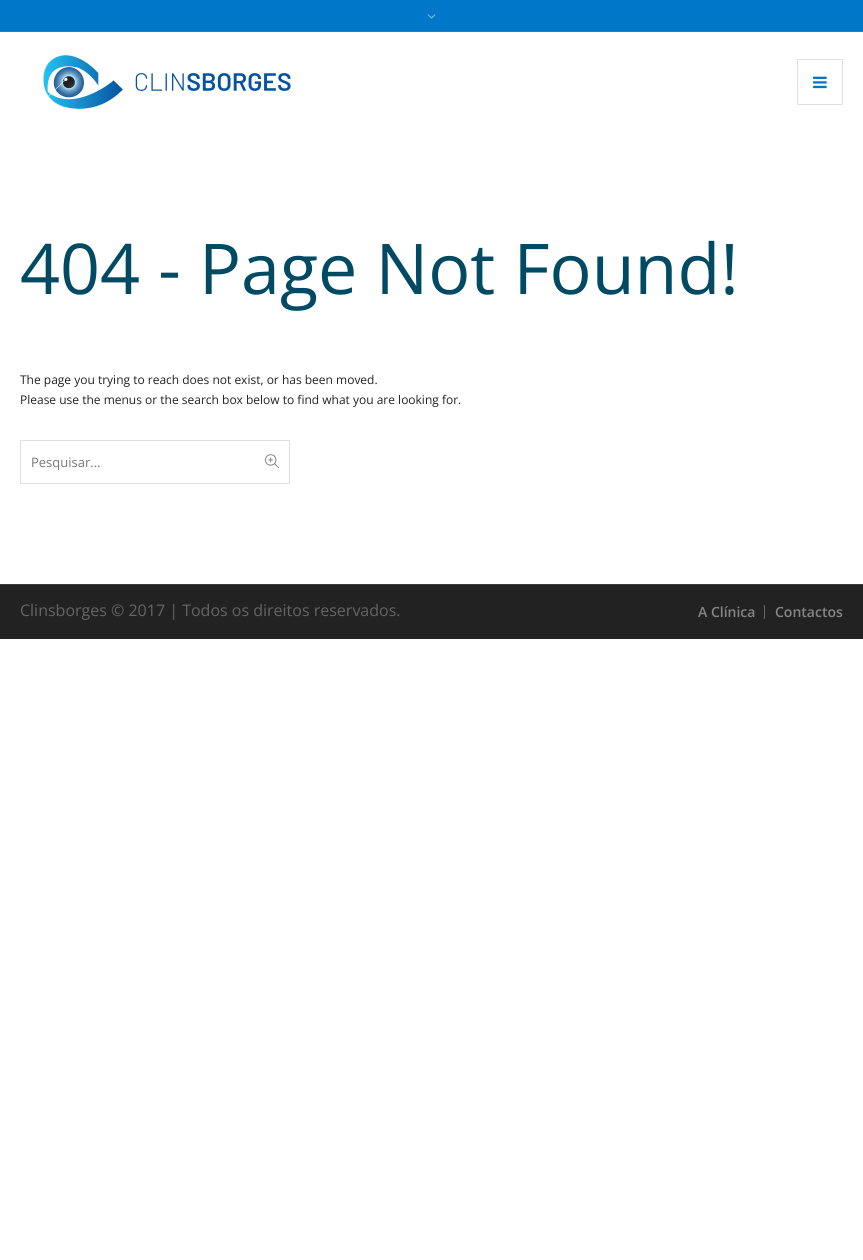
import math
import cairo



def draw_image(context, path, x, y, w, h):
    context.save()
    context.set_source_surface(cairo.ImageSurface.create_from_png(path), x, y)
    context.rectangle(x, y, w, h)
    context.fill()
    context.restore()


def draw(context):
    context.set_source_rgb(1, 1, 1)
    context.paint()
    context.set_source_rgb(0, 119 / 255, 200 / 255)
    context.rectangle(0, 0, 863, 31)
    context.fill()
    context.set_source_rgb(26 / 255, 133 / 255, 206 / 255)
    context.rectangle(0, 31, 863, 1)
    context.fill()
    draw_image(context, "images/1.png", 427, 14, 9, 5)
    draw_image(context, "images/2.png", 43, 55, 248, 54)
    context.rectangle(797.5, 59.5, 45, 45)
    context.set_source_rgb(224 / 255, 224 / 255, 224 / 255)
    context.set_line_width(1)
    context.stroke()
    draw_image(context, "images/3.png", 813, 76, 14, 13)
    context.rectangle(20.5, 440.5, 269, 43)
    context.stroke()
    draw_image(context, "images/4.png", 265, 454, 14, 15)
    context.set_source_rgb(34 / 255, 34 / 255, 34 / 255)
    context.rectangle(0, 585, 863, 54)
    context.fill()
    context.set_source_rgb(61 / 255, 61 / 255, 61 / 255)
    context.rectangle(0, 584, 863, 1)
    context.fill()
    context.set_source_rgb(100 / 255, 100 / 255, 100 / 255)
    context.rectangle(764, 605, 1, 14)
    context.fill()
    context.select_font_face("Open Sans")
    context.set_font_size(70)
    context.set_source_rgb(0, 74 / 255, 99 / 255)
    context.move_to(20, 294)
    context.show_text("404 - Page Not Found!")
    context.set_font_size(12)
    context.set_source_rgb(34 / 255, 34 / 255, 34 / 255)
    context.move_to(20, 384)
    context.show_text("The page you trying to reach does not exist, or has been moved.")
    context.move_to(20, 404)
    context.show_text("Please use the menus or the search box below to find what you are looking for.")
    context.set_font_size(13)
    context.set_source_rgb(120 / 255, 120 / 255, 120 / 255)
    context.move_to(31, 467)
    context.show_text("Pesquisar...")
    context.set_font_size(16)
    context.set_source_rgb(100 / 255, 100 / 255, 100 / 255)
    context.move_to(20, 616)
    context.show_text("Clinsborges © 2017 | Todos os direitos reservados.")
    context.select_font_face("Open Sans SemiBold")
    context.set_font_size(14)
    context.set_source_rgb(133 / 255, 133 / 255, 133 / 255)
    context.move_to(698, 617)
    context.show_text("A Clínica")
    context.move_to(775, 617)
    context.show_text("Contactos")


surface = cairo.ImageSurface(cairo.Format.RGB24, 863, 1260)
context = cairo.Context(surface)
options = cairo.FontOptions()
options.set_hint_metrics(cairo.HintMetrics.OFF)
options.set_hint_style(cairo.HintStyle.NONE)
context.set_font_options(options)
context.set_miter_limit(4)
draw(context)
surface.write_to_png("out.png")
